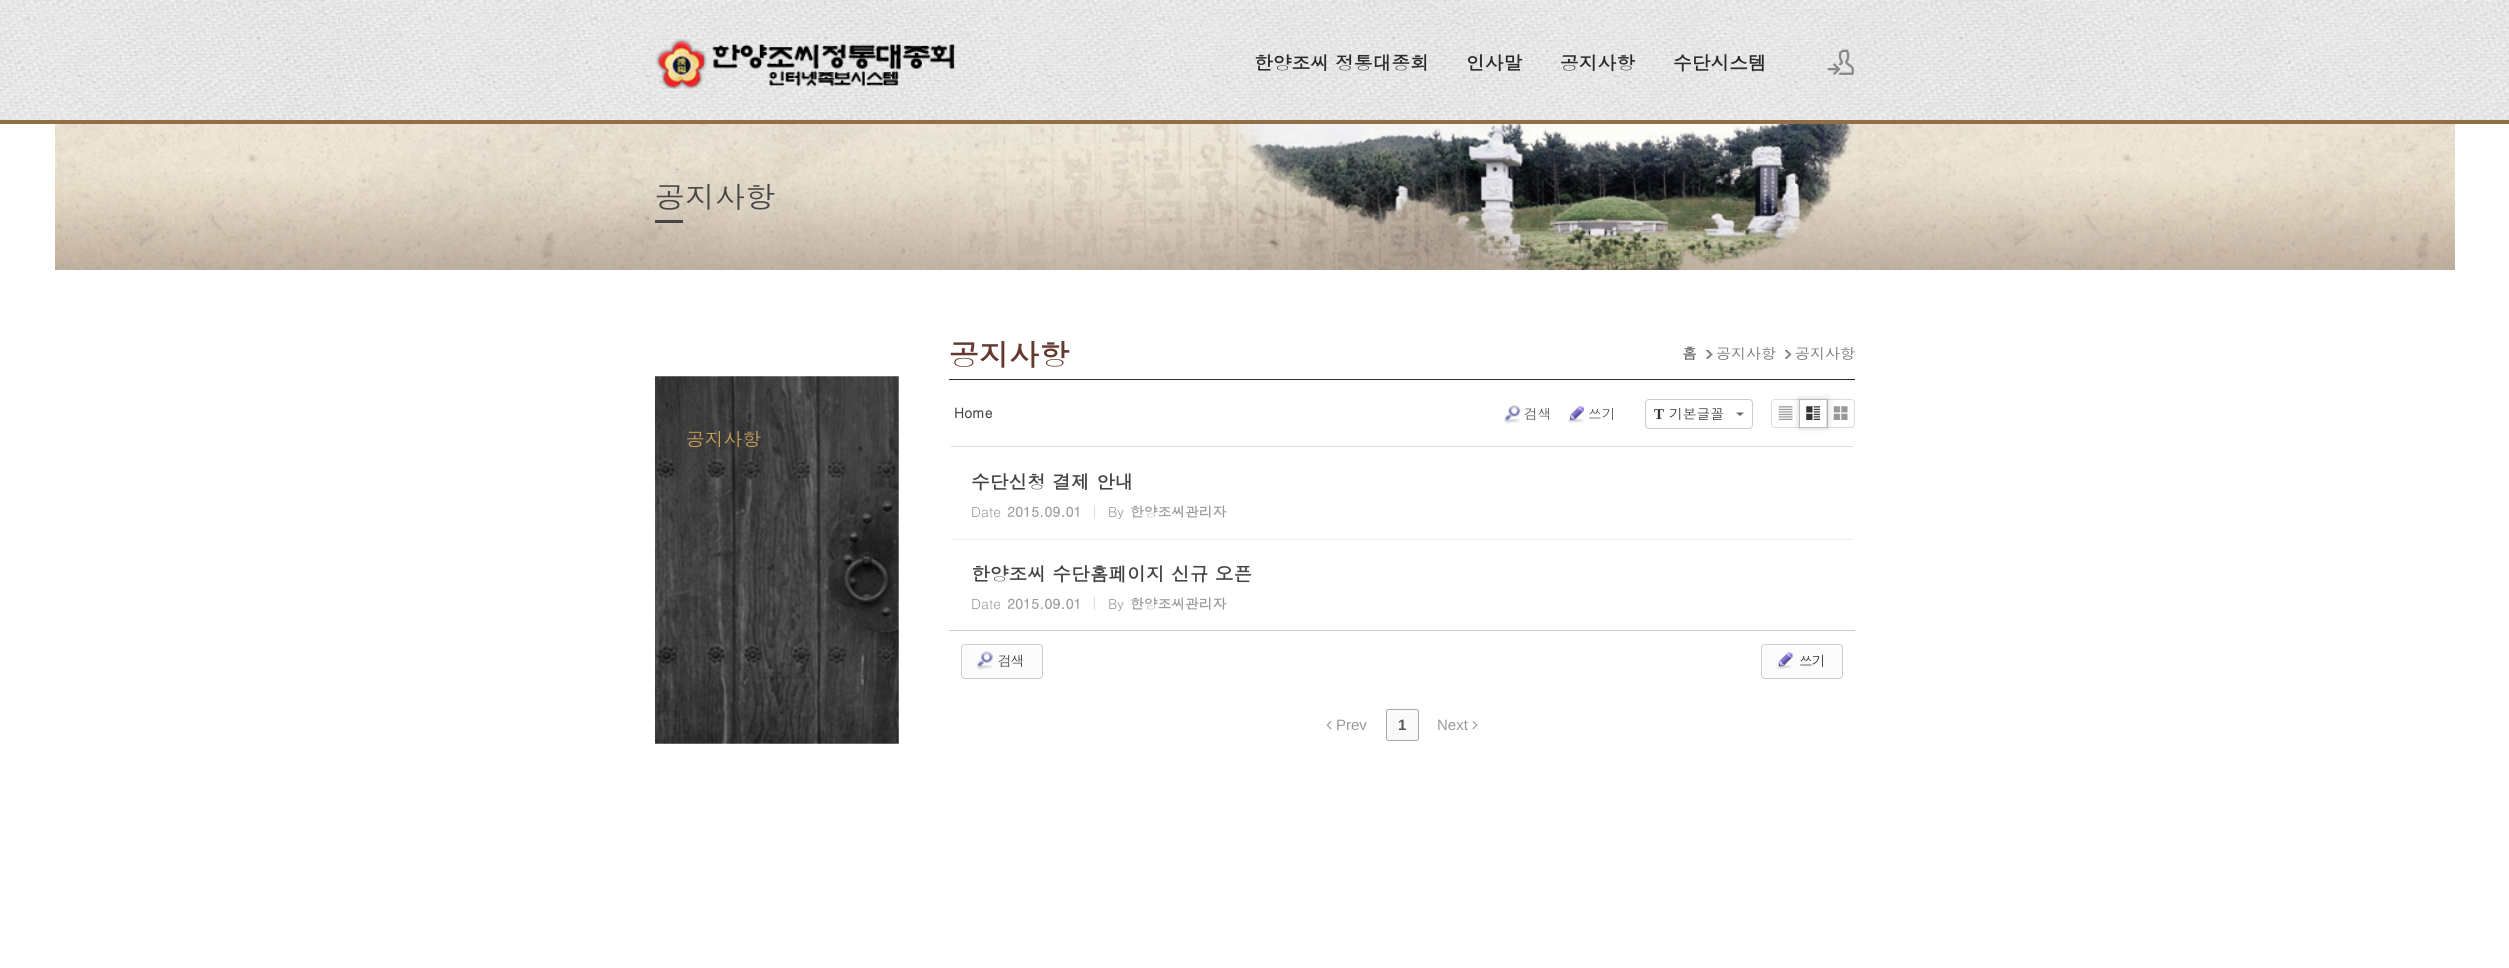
import math
import cairo



def draw_spaced(context, x, y, s, letter, word):
    context.move_to(x, y)
    for ch in s:
        context.show_text(ch)
        context.rel_move_to(letter + word * (ch == ' '), 0)


def rounded_rect(context, x, y, w, h, r):
    context.new_sub_path()
    for i, (u, v) in enumerate([(x + w - r, y + h - r), (x + r, y + h - r), (x + r, y + r), (x + w - r, y + r)]):
        context.arc(u, v, r, i * math.pi / 2, (i + 1) * math.pi / 2)
    context.close_path()


def draw_shadow(context, x, y, w, h, r, blur, alpha):
    context.push_group_with_content(cairo.Content.ALPHA)
    context.set_operator(cairo.Operator.SOURCE)
    for i in range(15, -16, -2):
        e = blur * i / 6
        if min(w, h) + 2 * e > 0:
            context.set_source_rgba(0, 0, 0, alpha * math.erfc((i - 1) / 8.5) / 2)
            rounded_rect(context, x - e, y - e, w + 2 * e, h + 2 * e, max(0, min(r + e + blur * .6, min(w, h) / 2 + e)))
            context.fill()
    context.mask(context.pop_group())


def draw_image(context, path, x, y, w, h):
    context.save()
    context.set_source_surface(cairo.ImageSurface.create_from_png(path), x, y)
    context.rectangle(x, y, w, h)
    context.fill()
    context.restore()


def draw(context):
    context.set_source_rgb(1, 1, 1)
    context.paint()
    draw_image(context, "images/1.png", 0, 0, 2509, 120)
    context.set_source_rgb(145 / 255, 110 / 255, 69 / 255)
    context.rectangle(0, 120, 2509, 4)
    context.fill()
    draw_image(context, "images/2.png", 655, 39, 300, 50)
    draw_image(context, "images/3.png", 1827, 49, 27, 26)
    draw_image(context, "images/4.png", 55, 124, 2400, 146)
    context.set_source_rgb(68 / 255, 68 / 255, 68 / 255)
    context.rectangle(655, 220, 28, 3)
    context.fill()
    draw_image(context, "images/5.png", 655, 376, 244, 368)
    context.set_source_rgb(44 / 255, 44 / 255, 44 / 255)
    context.rectangle(949, 379, 906, 1)
    context.fill()
    draw_image(context, "images/6.png", 1706, 350, 7, 9)
    draw_image(context, "images/7.png", 1785, 350, 7, 9)
    draw_image(context, "images/8.png", 1504, 405, 17, 19)
    draw_image(context, "images/9.png", 1567, 406, 17, 17)
    rounded_rect(context, 1645.5, 399.5, 107, 29, 3.5)
    context.set_source_rgb(204 / 255, 204 / 255, 204 / 255)
    context.set_line_width(1)
    context.stroke()
    context.set_source_rgb(102 / 255, 102 / 255, 102 / 255)
    context.new_path()
    context.move_to(1736, 412.5)
    context.line_to(1744, 412.5)
    context.line_to(1740, 416)
    context.close_path()
    context.fill()
    context.new_path()
    context.move_to(1775, 399.5)
    context.line_to(1799.5, 399.5)
    context.line_to(1799.5, 427.5)
    context.line_to(1775, 427.5)
    context.curve_to(1773, 427.5, 1771.5, 426, 1771.5, 424)
    context.line_to(1771.5, 403)
    context.curve_to(1771.5, 401, 1773, 399.5, 1775, 399.5)
    context.close_path()
    context.set_source_rgb(221 / 255, 221 / 255, 221 / 255)
    context.stroke()
    draw_image(context, "images/10.png", 1778, 406, 15, 14)
    context.save()
    context.set_fill_rule(cairo.FillRule.EVEN_ODD)
    context.new_path()
    context.move_to(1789, 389)
    context.line_to(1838, 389)
    context.line_to(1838, 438)
    context.line_to(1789, 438)
    context.close_path()
    context.move_to(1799, 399)
    context.line_to(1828, 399)
    context.line_to(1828, 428)
    context.line_to(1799, 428)
    context.close_path()
    context.clip()
    context.set_source_rgb(0, 0, 0)
    draw_shadow(context, 1799, 399, 29, 29, 0, 3, 0.2)
    context.restore()
    context.rectangle(1799.5, 399.5, 28, 28)
    context.set_source_rgb(187 / 255, 187 / 255, 187 / 255)
    context.stroke()
    draw_image(context, "images/11.png", 1806, 406, 14, 14)
    context.new_path()
    context.move_to(1826.5, 399.5)
    context.line_to(1851, 399.5)
    context.curve_to(1853, 399.5, 1854.5, 401, 1854.5, 403)
    context.line_to(1854.5, 424)
    context.curve_to(1854.5, 426, 1853, 427.5, 1851, 427.5)
    context.line_to(1826.5, 427.5)
    context.close_path()
    context.set_source_rgba(187 / 255, 187 / 255, 187 / 255, 0.5)
    context.stroke()
    draw_image(context, "images/12.png", 1833, 406, 15, 14)
    context.set_source_rgb(221 / 255, 221 / 255, 221 / 255)
    context.rectangle(951, 446, 902, 1)
    context.fill()
    context.set_source_rgb(238 / 255, 238 / 255, 238 / 255)
    context.rectangle(951, 539, 902, 1)
    context.fill()
    context.set_source_rgb(221 / 255, 221 / 255, 221 / 255)
    context.rectangle(1094, 505, 1, 14)
    context.fill()
    context.rectangle(1094, 596, 1, 14)
    context.fill()
    context.set_source_rgb(204 / 255, 204 / 255, 204 / 255)
    context.rectangle(949, 630, 906, 1)
    context.fill()
    context.set_source_rgb(252 / 255, 252 / 255, 252 / 255)
    rounded_rect(context, 961.5, 644.5, 81, 34, 3.5)
    context.fill_preserve()
    context.set_source_rgb(204 / 255, 204 / 255, 204 / 255)
    context.stroke()
    draw_image(context, "images/13.png", 976, 651, 17, 19)
    context.set_source_rgb(252 / 255, 252 / 255, 252 / 255)
    rounded_rect(context, 1761.5, 644.5, 81, 34, 3.5)
    context.fill_preserve()
    context.set_source_rgb(204 / 255, 204 / 255, 204 / 255)
    context.stroke()
    draw_image(context, "images/14.png", 1776, 652, 17, 17)
    draw_image(context, "images/15.png", 1326, 721, 6, 9)
    context.set_source_rgb(249 / 255, 249 / 255, 249 / 255)
    rounded_rect(context, 1386.5, 709.5, 32, 31, 2)
    context.fill_preserve()
    context.set_source_rgb(170 / 255, 170 / 255, 170 / 255)
    context.stroke()
    draw_image(context, "images/16.png", 1472, 721, 6, 9)
    context.select_font_face("Dotum", cairo.FontSlant.NORMAL, cairo.FontWeight.BOLD)
    context.set_font_size(18.75)
    context.set_source_rgb(42 / 255, 42 / 255, 42 / 255)
    context.move_to(1254, 70)
    context.show_text("한양조씨 정통대종회")
    context.move_to(1466, 70)
    context.show_text("인사말")
    context.move_to(1560, 70)
    context.show_text("공지사항")
    context.move_to(1673, 70)
    context.show_text("수단시스템")
    context.select_font_face("Dotum")
    context.set_font_size(30)
    context.set_source_rgb(68 / 255, 68 / 255, 68 / 255)
    context.move_to(655, 208)
    context.show_text("공지사항")
    context.set_font_size(18.75)
    context.set_source_rgb(205 / 255, 162 / 255, 90 / 255)
    context.move_to(686, 446)
    context.show_text("공지사항")
    context.select_font_face("Dotum", cairo.FontSlant.NORMAL, cairo.FontWeight.BOLD)
    context.set_font_size(30)
    context.set_source_rgb(101 / 255, 56 / 255, 47 / 255)
    context.move_to(949, 366)
    context.show_text("공지사항")
    context.set_font_size(15)
    context.set_source_rgb(112 / 255, 112 / 255, 112 / 255)
    context.move_to(1682, 359)
    context.show_text("홈")
    context.select_font_face("Dotum")
    context.move_to(1716, 359)
    context.show_text("공지사항")
    context.move_to(1795, 359)
    context.show_text("공지사항")
    context.select_font_face("Dotum", cairo.FontSlant.NORMAL, cairo.FontWeight.BOLD)
    context.set_font_size(13.75)
    context.set_source_rgb(68 / 255, 68 / 255, 68 / 255)
    context.move_to(954, 418)
    context.show_text("Home")
    context.select_font_face("Dotum")
    context.set_source_rgb(85 / 255, 85 / 255, 85 / 255)
    context.move_to(1524, 419)
    context.show_text("검색")
    context.move_to(1588, 419)
    context.show_text("쓰기")
    context.select_font_face("Liberation Serif", cairo.FontSlant.NORMAL, cairo.FontWeight.BOLD)
    context.set_font_size(15)
    context.set_source_rgb(51 / 255, 51 / 255, 51 / 255)
    context.move_to(1654, 419)
    context.show_text("T")
    context.select_font_face("Dotum")
    context.set_font_size(13.75)
    context.move_to(1669, 419)
    context.show_text("기본글꼴")
    context.select_font_face("Dotum", cairo.FontSlant.NORMAL, cairo.FontWeight.BOLD)
    context.set_font_size(18.75)
    context.set_source_rgb(68 / 255, 68 / 255, 68 / 255)
    context.move_to(971, 489)
    context.show_text("수단신청 결제 안내")
    context.select_font_face("Dotum")
    context.set_font_size(13.75)
    context.set_source_rgb(153 / 255, 153 / 255, 153 / 255)
    context.move_to(971, 517)
    context.show_text("Date")
    context.select_font_face("Dotum", cairo.FontSlant.NORMAL, cairo.FontWeight.BOLD)
    context.move_to(1007, 517)
    context.show_text("2015.09.01")
    context.select_font_face("Dotum")
    context.move_to(1108, 517)
    context.show_text("By")
    context.select_font_face("Dotum", cairo.FontSlant.NORMAL, cairo.FontWeight.BOLD)
    context.move_to(1130, 517)
    context.show_text("한양조씨관리자")
    context.set_font_size(18.75)
    context.set_source_rgb(68 / 255, 68 / 255, 68 / 255)
    context.move_to(971, 581)
    context.show_text("한양조씨 수단홈페이지 신규 오픈")
    context.select_font_face("Dotum")
    context.set_font_size(13.75)
    context.set_source_rgb(153 / 255, 153 / 255, 153 / 255)
    context.move_to(971, 609)
    context.show_text("Date")
    context.select_font_face("Dotum", cairo.FontSlant.NORMAL, cairo.FontWeight.BOLD)
    context.move_to(1007, 609)
    context.show_text("2015.09.01")
    context.select_font_face("Dotum")
    context.move_to(1108, 609)
    context.show_text("By")
    context.select_font_face("Dotum", cairo.FontSlant.NORMAL, cairo.FontWeight.BOLD)
    context.move_to(1130, 609)
    context.show_text("한양조씨관리자")
    context.select_font_face("Dotum")
    context.set_source_rgb(68 / 255, 68 / 255, 68 / 255)
    draw_spaced(context, 998, 666, "검색", -1, 0)
    context.set_source_rgb(51 / 255, 51 / 255, 51 / 255)
    draw_spaced(context, 1799, 666, "쓰기", -1, 0)
    context.select_font_face("Liberation Sans")
    context.set_font_size(15)
    context.set_source_rgb(153 / 255, 153 / 255, 153 / 255)
    context.move_to(1336, 730)
    context.show_text("Prev")
    context.select_font_face("Liberation Sans", cairo.FontSlant.NORMAL, cairo.FontWeight.BOLD)
    context.set_source_rgb(85 / 255, 85 / 255, 85 / 255)
    draw_spaced(context, 1398, 730, "1", -1, 0)
    context.select_font_face("Liberation Sans")
    context.set_source_rgb(153 / 255, 153 / 255, 153 / 255)
    context.move_to(1437, 730)
    context.show_text("Next")


surface = cairo.ImageSurface(cairo.Format.RGB24, 2509, 968)
context = cairo.Context(surface)
options = cairo.FontOptions()
options.set_hint_metrics(cairo.HintMetrics.OFF)
options.set_hint_style(cairo.HintStyle.NONE)
context.set_font_options(options)
context.set_miter_limit(4)
draw(context)
surface.write_to_png("out.png")
